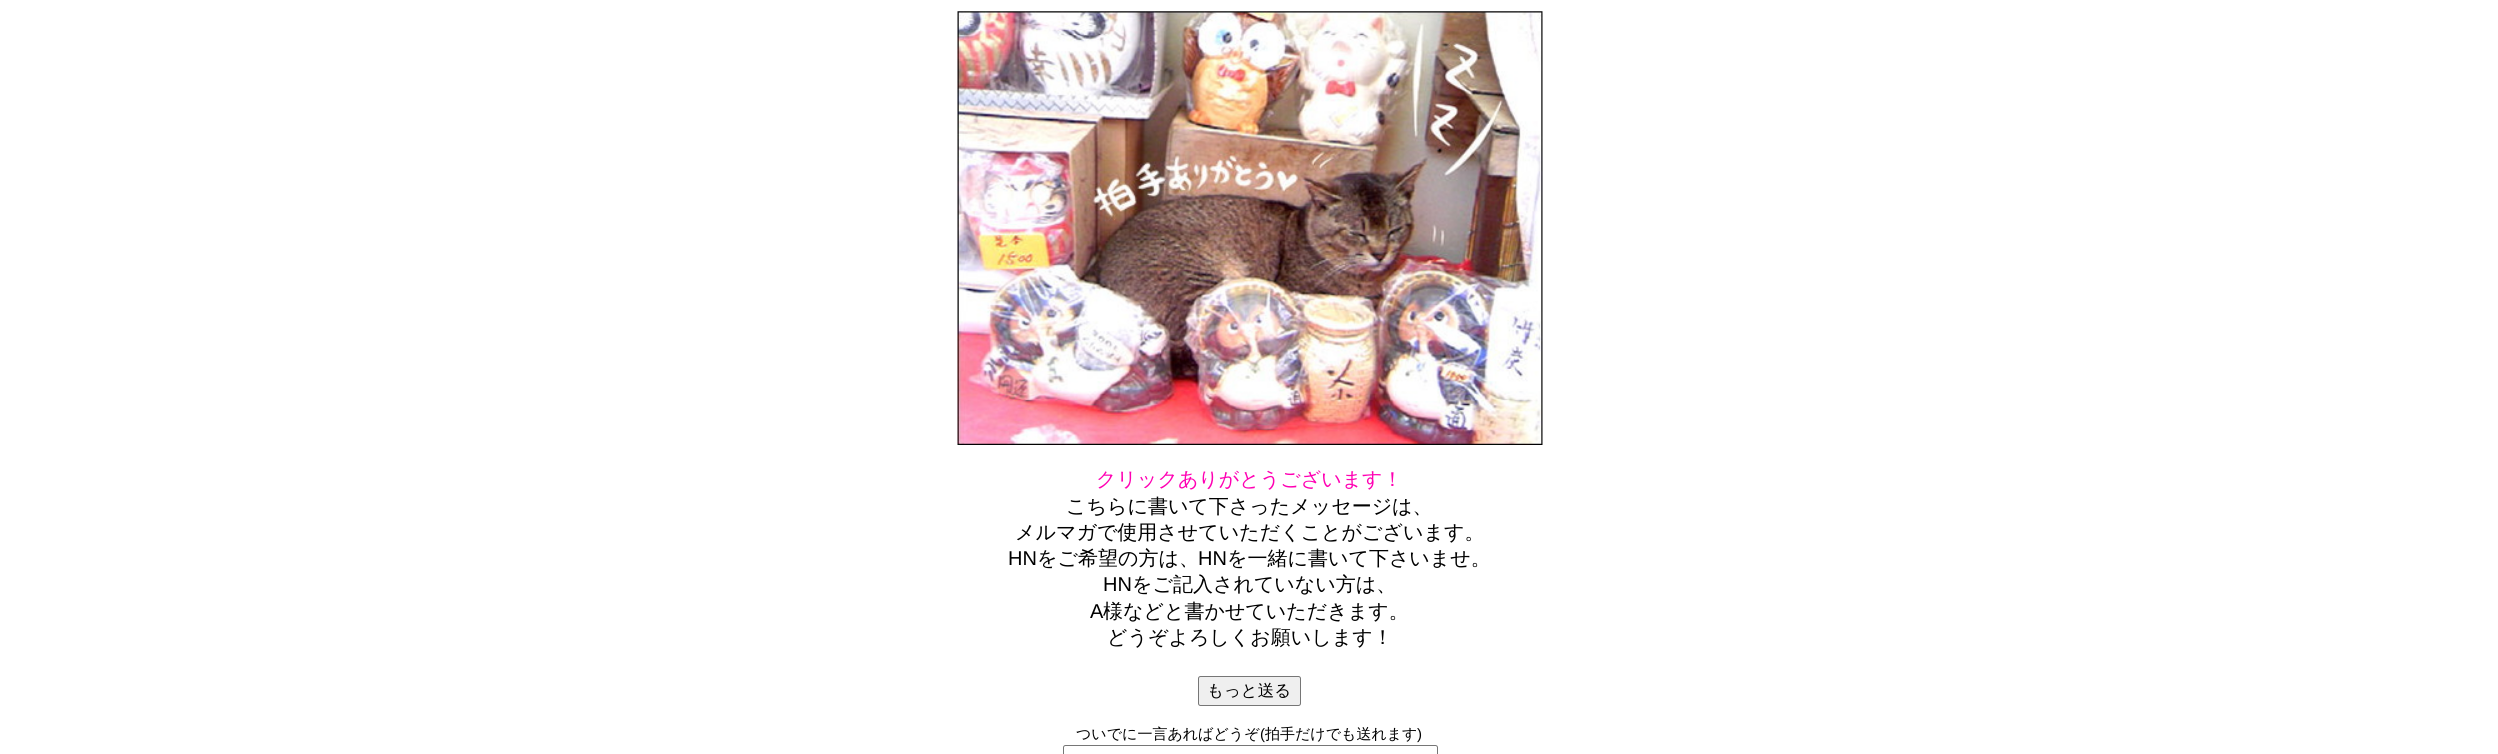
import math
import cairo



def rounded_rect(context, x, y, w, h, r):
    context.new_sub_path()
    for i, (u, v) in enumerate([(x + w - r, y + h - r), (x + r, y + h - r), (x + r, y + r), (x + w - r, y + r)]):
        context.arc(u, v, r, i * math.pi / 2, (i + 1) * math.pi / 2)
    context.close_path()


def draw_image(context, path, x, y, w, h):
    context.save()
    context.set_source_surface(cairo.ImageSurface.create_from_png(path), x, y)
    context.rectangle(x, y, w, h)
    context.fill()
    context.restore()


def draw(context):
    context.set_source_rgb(1, 1, 1)
    context.paint()
    draw_image(context, "images/1.png", 957, 11, 586, 434)
    context.set_source_rgb(239 / 255, 239 / 255, 239 / 255)
    rounded_rect(context, 1198.5, 676.5, 102, 29, 2)
    context.fill_preserve()
    context.set_source_rgb(118 / 255, 118 / 255, 118 / 255)
    context.set_line_width(1)
    context.stroke()
    rounded_rect(context, 1063.5, 745.5, 374, 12, 2)
    context.stroke()
    context.select_font_face("WenQuanYi Zen Hei Medium")
    context.set_font_size(20)
    context.set_source_rgb(1, 0, 179 / 255)
    context.move_to(1096, 486)
    context.show_text("クリックありがとうございます！")
    context.set_source_rgb(0, 0, 0)
    context.move_to(1066, 513)
    context.show_text("こちらに書いて下さったメッセージは、")
    context.move_to(1015, 539)
    context.show_text("メルマガで使用させていただくことがございます。")
    context.select_font_face("Liberation Sans")
    context.move_to(1008, 565)
    context.show_text("HN")
    context.select_font_face("WenQuanYi Zen Hei Medium")
    context.move_to(1037, 565)
    context.show_text("をご希望の方は、")
    context.select_font_face("Liberation Sans")
    context.move_to(1198, 565)
    context.show_text("HN")
    context.select_font_face("WenQuanYi Zen Hei Medium")
    context.move_to(1227, 565)
    context.show_text("を一緒に書いて下さいませ。")
    context.select_font_face("Liberation Sans")
    context.move_to(1103, 591)
    context.show_text("HN")
    context.select_font_face("WenQuanYi Zen Hei Medium")
    context.move_to(1132, 591)
    context.show_text("をご記入されていない方は、")
    context.select_font_face("Liberation Sans")
    context.move_to(1090, 618)
    context.show_text("A")
    context.select_font_face("WenQuanYi Zen Hei Medium")
    context.move_to(1103, 618)
    context.show_text("様などと書かせていただきます。")
    context.move_to(1107, 644)
    context.show_text("どうぞよろしくお願いします！")
    context.set_font_size(16.5)
    context.move_to(1207, 696)
    context.show_text("もっと送る")
    context.set_font_size(15)
    context.move_to(1076, 739)
    context.show_text("ついでに一言あればどうぞ")
    context.select_font_face("Liberation Sans")
    context.move_to(1260, 739)
    context.show_text("(")
    context.select_font_face("WenQuanYi Zen Hei Medium")
    context.move_to(1265, 739)
    context.show_text("拍手だけでも送れます")
    context.select_font_face("Liberation Sans")
    context.move_to(1417, 739)
    context.show_text(")")


surface = cairo.ImageSurface(cairo.Format.RGB24, 2498, 754)
context = cairo.Context(surface)
options = cairo.FontOptions()
options.set_hint_metrics(cairo.HintMetrics.OFF)
options.set_hint_style(cairo.HintStyle.NONE)
context.set_font_options(options)
context.set_miter_limit(4)
draw(context)
surface.write_to_png("out.png")
